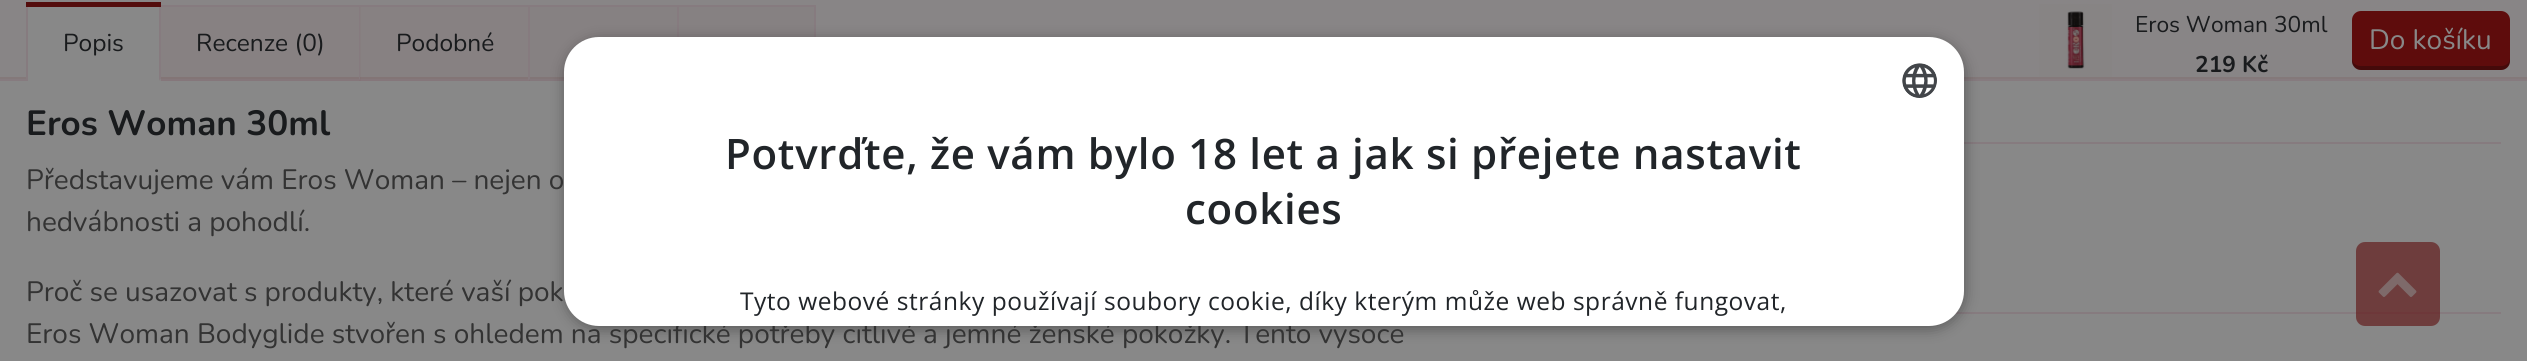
import math
import cairo



def draw_spaced(context, x, y, s, letter, word):
    context.move_to(x, y)
    for ch in s:
        context.show_text(ch)
        context.rel_move_to(letter + word * (ch == ' '), 0)


def rounded_rect(context, x, y, w, h, r):
    context.new_sub_path()
    for i, (u, v) in enumerate([(x + w - r, y + h - r), (x + r, y + h - r), (x + r, y + r), (x + w - r, y + r)]):
        context.arc(u, v, r, i * math.pi / 2, (i + 1) * math.pi / 2)
    context.close_path()


def draw_shadow(context, x, y, w, h, r, blur, alpha):
    context.push_group_with_content(cairo.Content.ALPHA)
    context.set_operator(cairo.Operator.SOURCE)
    for i in range(15, -16, -2):
        e = blur * i / 6
        if min(w, h) + 2 * e > 0:
            context.set_source_rgba(0, 0, 0, alpha * math.erfc((i - 1) / 8.5) / 2)
            rounded_rect(context, x - e, y - e, w + 2 * e, h + 2 * e, max(0, min(r + e + blur * .6, min(w, h) / 2 + e)))
            context.fill()
    context.mask(context.pop_group())


def draw_image(context, path, x, y, w, h):
    context.save()
    context.set_source_surface(cairo.ImageSurface.create_from_png(path), x, y)
    context.rectangle(x, y, w, h)
    context.fill()
    context.restore()


def draw(context):
    context.set_source_rgb(136 / 255, 136 / 255, 136 / 255)
    context.paint()
    context.set_source_rgb(136 / 255, 133 / 255, 134 / 255)
    context.rectangle(0, 0, 2527, 77)
    context.fill()
    context.set_source_rgb(135 / 255, 129 / 255, 130 / 255)
    context.rectangle(361, 7, 167, 70)
    context.fill()
    context.rectangle(161, 7, 198, 70)
    context.fill()
    context.set_source_rgb(134 / 255, 126 / 255, 127 / 255)
    context.rectangle(360, 5, 1, 76)
    context.fill()
    context.set_source_rgb(132 / 255, 121 / 255, 122 / 255)
    context.rectangle(0, 77, 2527, 2)
    context.fill()
    context.set_source_rgb(131 / 255, 117 / 255, 118 / 255)
    context.rectangle(159, 77, 371, 2)
    context.fill()
    context.set_source_rgb(130 / 255, 114 / 255, 115 / 255)
    context.rectangle(359, 77, 2, 2)
    context.fill()
    context.set_source_rgb(134 / 255, 123 / 255, 127 / 255)
    context.rectangle(0, 79, 2527, 2)
    context.fill()
    context.set_source_rgb(133 / 255, 119 / 255, 123 / 255)
    context.rectangle(159, 79, 371, 2)
    context.fill()
    context.set_source_rgb(132 / 255, 116 / 255, 120 / 255)
    context.rectangle(359, 79, 2, 2)
    context.fill()
    context.set_source_rgb(134 / 255, 123 / 255, 127 / 255)
    context.rectangle(159, 5, 371, 2)
    context.fill()
    context.new_path()
    context.move_to(530, 5)
    context.line_to(530, 80)
    context.line_to(528, 79)
    context.line_to(528, 7)
    context.close_path()
    context.fill()
    context.set_source_rgba(94 / 255, 12 / 255, 12 / 255, 0.03)
    context.rectangle(529, 7, 148, 74)
    context.fill()
    context.set_source_rgb(134 / 255, 123 / 255, 127 / 255)
    context.rectangle(529, 5, 287, 2)
    context.fill()
    context.new_path()
    context.move_to(528, 80)
    context.line_to(528, 5)
    context.line_to(530, 7)
    context.line_to(530, 79)
    context.close_path()
    context.fill()
    context.set_source_rgb(136 / 255, 136 / 255, 136 / 255)
    context.rectangle(28, 7, 131, 72)
    context.fill()
    context.rectangle(26, 79, 135, 2)
    context.fill()
    context.set_source_rgb(135 / 255, 133 / 255, 133 / 255)
    context.rectangle(159, 79, 2, 2)
    context.fill()
    context.set_source_rgb(134 / 255, 123 / 255, 127 / 255)
    context.rectangle(26, 5, 2, 76)
    context.fill()
    context.new_path()
    context.move_to(159, 80)
    context.line_to(159, 5)
    context.line_to(161, 7)
    context.line_to(161, 79)
    context.close_path()
    context.fill()
    context.set_source_rgb(83 / 255, 12 / 255, 12 / 255)
    context.rectangle(26, 2, 135, 5)
    context.fill()
    context.set_source_rgb(134 / 255, 123 / 255, 127 / 255)
    context.new_path()
    context.move_to(359, 80)
    context.line_to(359, 5)
    context.line_to(360, 7)
    context.line_to(360, 79)
    context.close_path()
    context.fill()
    context.set_source_rgba(94 / 255, 12 / 255, 12 / 255, 0.03)
    context.rectangle(679, 7, 135, 30)
    context.fill()
    context.set_source_rgb(134 / 255, 123 / 255, 127 / 255)
    context.new_path()
    context.move_to(816, 5)
    context.line_to(816, 80)
    context.line_to(814, 79)
    context.line_to(814, 7)
    context.close_path()
    context.fill()
    context.new_path()
    context.move_to(677, 80)
    context.line_to(677, 5)
    context.line_to(679, 7)
    context.line_to(679, 79)
    context.close_path()
    context.fill()
    draw_image(context, "images/1.png", 2039, 4, 73, 73)
    context.set_source_rgb(94 / 255, 12 / 255, 12 / 255)
    rounded_rect(context, 2352, 11, 158, 59, 9)
    context.fill()
    context.set_source_rgba(9 / 255, 9 / 255, 9 / 255, 0.3)
    context.new_path()
    context.move_to(2352, 58)
    context.line_to(2352, 61)
    context.curve_to(2352, 66, 2356, 70, 2361, 70)
    context.line_to(2501, 70)
    context.curve_to(2506, 70, 2510, 66, 2510, 61)
    context.line_to(2510, 58)
    context.curve_to(2510, 63, 2506, 66, 2501, 66)
    context.line_to(2361, 66)
    context.curve_to(2356, 66, 2352, 63, 2352, 58)
    context.close_path()
    context.fill()
    context.set_source_rgb(134 / 255, 123 / 255, 127 / 255)
    context.rectangle(1964, 142, 537, 2)
    context.fill()
    context.rectangle(1955, 312, 546, 2)
    context.fill()
    context.set_source_rgb(0, 0, 0)
    draw_shadow(context, 565, 40, 1400, 289, 35, 7, 0.35)
    context.set_source_rgba(94 / 255, 12 / 255, 12 / 255, 0.6)
    rounded_rect(context, 2356, 242, 84, 84, 9)
    context.fill()
    draw_image(context, "images/3.png", 2378, 272, 39, 25)
    context.select_font_face("Nunito")
    context.set_font_size(24.5)
    context.set_source_rgb(25 / 255, 27 / 255, 29 / 255)
    context.move_to(63, 51)
    context.show_text("Popis")
    context.move_to(196, 51)
    context.show_text("Recenze (0)")
    context.move_to(396, 51)
    context.show_text("Podobné")
    context.set_font_size(22.75)
    context.move_to(2135, 32)
    context.show_text("Eros Woman 30ml")
    context.select_font_face("Nunito", cairo.FontSlant.NORMAL, cairo.FontWeight.BOLD)
    context.move_to(2195, 72)
    context.show_text("219 Kč")
    context.select_font_face("Nunito")
    context.set_font_size(28)
    context.set_source_rgb(136 / 255, 136 / 255, 136 / 255)
    context.move_to(2369, 49)
    context.show_text("Do košíku")
    context.select_font_face("Nunito", cairo.FontSlant.NORMAL, cairo.FontWeight.BOLD)
    context.set_font_size(35)
    context.set_source_rgb(25 / 255, 27 / 255, 29 / 255)
    context.move_to(26, 135)
    context.show_text("Eros Woman 30ml")
    context.select_font_face("Nunito")
    context.set_font_size(28)
    context.set_source_rgb(51 / 255, 51 / 255, 51 / 255)
    context.move_to(26, 189)
    context.show_text("Představujeme vám Eros Woman – nejen o")
    context.move_to(26, 231)
    context.show_text("hedvábnosti a pohodlí.")
    context.move_to(26, 301)
    context.show_text("Proč se usazovat s produkty, které vaší pok")
    context.move_to(26, 343)
    context.show_text("Eros Woman Bodyglide stvořen s ohledem na specifické potřeby citlivé a jemné ženské pokožky. Tento vysoce")
    context.set_source_rgb(1, 1, 1)
    rounded_rect(context, 564, 37, 1400, 289, 35)
    context.fill()
    draw_image(context, "images/2.png", 1902, 63, 35, 35)
    context.select_font_face("Open Sans SemiBold")
    context.set_font_size(42)
    context.set_source_rgb(33 / 255, 37 / 255, 41 / 255)
    draw_spaced(context, 725, 169, "Potvrďte, že vám bylo 18 let a jak si přejete nastavit", 0.7, 0)
    draw_spaced(context, 1185, 224, "cookies", 0.7, 0)
    context.select_font_face("Open Sans")
    context.set_font_size(24.5)
    draw_spaced(context, 740, 310, "Tyto webové stránky používají soubory cookie, díky kterým může web správně fungovat,", 0.53, 0)


surface = cairo.ImageSurface(cairo.Format.RGB24, 2527, 361)
context = cairo.Context(surface)
options = cairo.FontOptions()
options.set_hint_metrics(cairo.HintMetrics.OFF)
options.set_hint_style(cairo.HintStyle.NONE)
context.set_font_options(options)
context.set_miter_limit(4)
draw(context)
surface.write_to_png("out.png")
